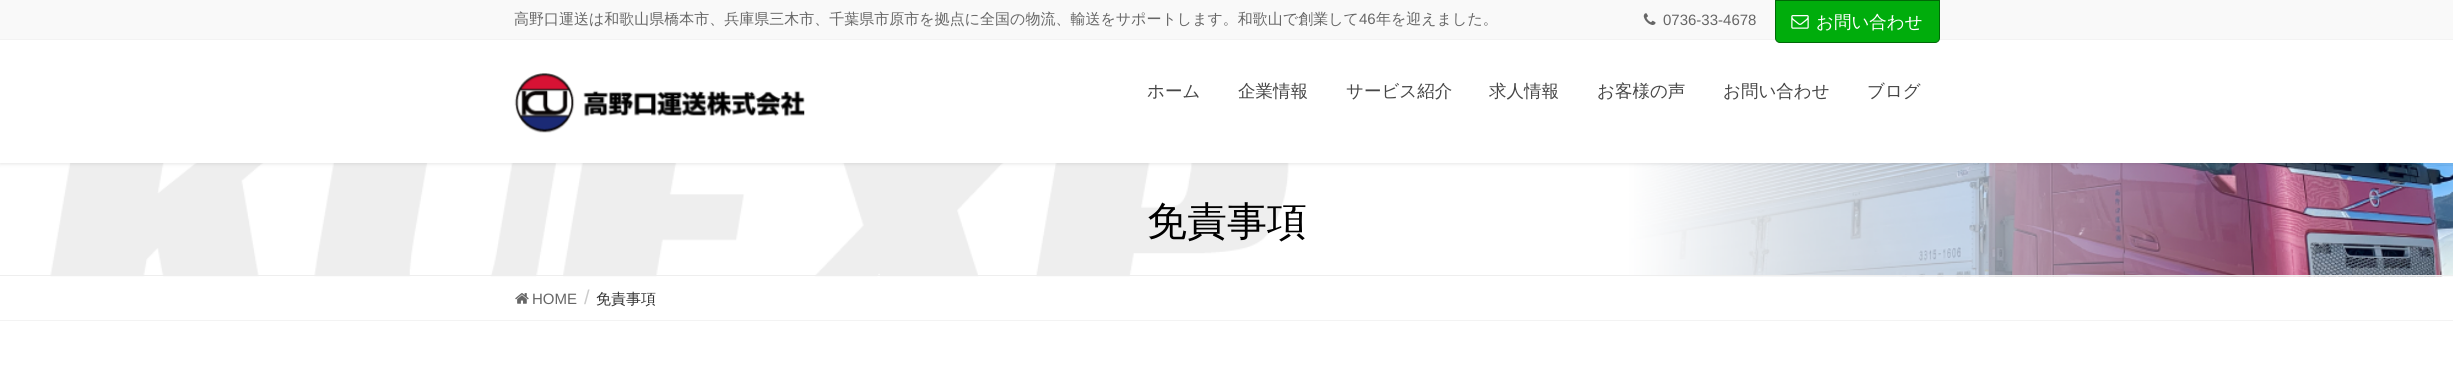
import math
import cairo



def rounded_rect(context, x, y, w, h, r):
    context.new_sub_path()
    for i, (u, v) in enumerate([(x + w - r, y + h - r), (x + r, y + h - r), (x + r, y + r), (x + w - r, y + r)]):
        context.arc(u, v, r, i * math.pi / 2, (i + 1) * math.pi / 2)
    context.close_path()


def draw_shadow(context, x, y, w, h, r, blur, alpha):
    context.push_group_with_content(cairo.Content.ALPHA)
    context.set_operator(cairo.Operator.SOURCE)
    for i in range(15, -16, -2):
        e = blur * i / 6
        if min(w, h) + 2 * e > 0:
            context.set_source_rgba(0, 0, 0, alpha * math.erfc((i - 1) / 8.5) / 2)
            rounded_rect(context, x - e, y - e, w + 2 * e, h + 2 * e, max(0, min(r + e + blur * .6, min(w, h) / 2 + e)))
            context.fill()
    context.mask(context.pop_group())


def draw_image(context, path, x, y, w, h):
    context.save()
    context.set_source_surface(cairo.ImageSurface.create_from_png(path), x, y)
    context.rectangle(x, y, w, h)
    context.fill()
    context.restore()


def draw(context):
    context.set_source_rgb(1, 1, 1)
    context.paint()
    draw_image(context, "images/4.png", 50, 163, 2403, 114)
    context.set_source_rgb(0, 0, 0)
    draw_shadow(context, 0, 1, 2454, 163, 0, 2, 0.1)
    context.set_source_rgb(1, 1, 1)
    context.rectangle(0, 40, 2453, 123)
    context.fill()
    context.set_source_rgb(249 / 255, 249 / 255, 249 / 255)
    context.rectangle(0, 0, 2453, 39)
    context.fill()
    context.set_source_rgb(243 / 255, 243 / 255, 243 / 255)
    context.rectangle(0, 39, 2453, 1)
    context.fill()
    draw_image(context, "images/1.png", 1643, 13, 13, 12)
    context.set_source_rgb(0, 173 / 255, 12 / 255)
    context.new_path()
    context.move_to(1775.5, 0.5)
    context.line_to(1939.5, 0.5)
    context.line_to(1939.5, 38)
    context.curve_to(1939.5, 40.5, 1937.5, 42.5, 1935, 42.5)
    context.line_to(1780, 42.5)
    context.curve_to(1777.5, 42.5, 1775.5, 40.5, 1775.5, 38)
    context.close_path()
    context.fill_preserve()
    context.set_source_rgb(0, 105 / 255, 7 / 255)
    context.set_line_width(1)
    context.stroke()
    draw_image(context, "images/2.png", 1791, 15, 18, 14)
    draw_image(context, "images/3.png", 514, 73, 291, 60)
    context.set_source_rgb(238 / 255, 238 / 255, 238 / 255)
    context.rectangle(0, 275, 2453, 1)
    context.fill()
    context.set_source_rgb(243 / 255, 243 / 255, 243 / 255)
    context.rectangle(0, 320, 2453, 1)
    context.fill()
    draw_image(context, "images/5.png", 515, 293, 14, 11)
    context.select_font_face("WenQuanYi Zen Hei Medium")
    context.set_font_size(15)
    context.set_source_rgb(102 / 255, 102 / 255, 102 / 255)
    context.move_to(514, 24)
    context.show_text("高野口運送は和歌山県橋本市、兵庫県三木市、千葉県市原市を拠点に全国の物流、輸送をサポートします。和歌山で創業して")
    context.select_font_face("Liberation Sans")
    context.move_to(1359, 24)
    context.show_text("46")
    context.select_font_face("WenQuanYi Zen Hei Medium")
    context.move_to(1376, 24)
    context.show_text("年を迎えました。")
    context.select_font_face("Liberation Sans")
    context.move_to(1663, 25)
    context.show_text("0736-33-4678")
    context.select_font_face("WenQuanYi Zen Hei Medium")
    context.set_font_size(17.5)
    context.set_source_rgb(1, 1, 1)
    context.move_to(1816, 28)
    context.show_text("お問い合わせ")
    context.set_source_rgb(70 / 255, 70 / 255, 70 / 255)
    context.move_to(1147, 97)
    context.show_text("ホーム")
    context.move_to(1238, 97)
    context.show_text("企業情報")
    context.move_to(1346, 97)
    context.show_text("サービス紹介")
    context.move_to(1489, 97)
    context.show_text("求人情報")
    context.move_to(1597, 97)
    context.show_text("お客様の声")
    context.move_to(1723, 97)
    context.show_text("お問い合わせ")
    context.move_to(1867, 97)
    context.show_text("ブログ")
    context.set_font_size(40)
    context.set_source_rgb(0, 0, 0)
    context.move_to(1147, 235)
    context.show_text("免責事項")
    context.select_font_face("Liberation Sans")
    context.set_font_size(15)
    context.set_source_rgb(102 / 255, 102 / 255, 102 / 255)
    context.move_to(532, 304)
    context.show_text("HOME")
    context.set_font_size(20)
    context.set_source_rgb(204 / 255, 204 / 255, 204 / 255)
    context.move_to(584, 304)
    context.show_text("/")
    context.select_font_face("WenQuanYi Zen Hei Medium")
    context.set_font_size(15)
    context.set_source_rgb(51 / 255, 51 / 255, 51 / 255)
    context.move_to(596, 304)
    context.show_text("免責事項")


surface = cairo.ImageSurface(cairo.Format.RGB24, 2453, 390)
context = cairo.Context(surface)
options = cairo.FontOptions()
options.set_hint_metrics(cairo.HintMetrics.OFF)
options.set_hint_style(cairo.HintStyle.NONE)
context.set_font_options(options)
context.set_miter_limit(4)
draw(context)
surface.write_to_png("out.png")
